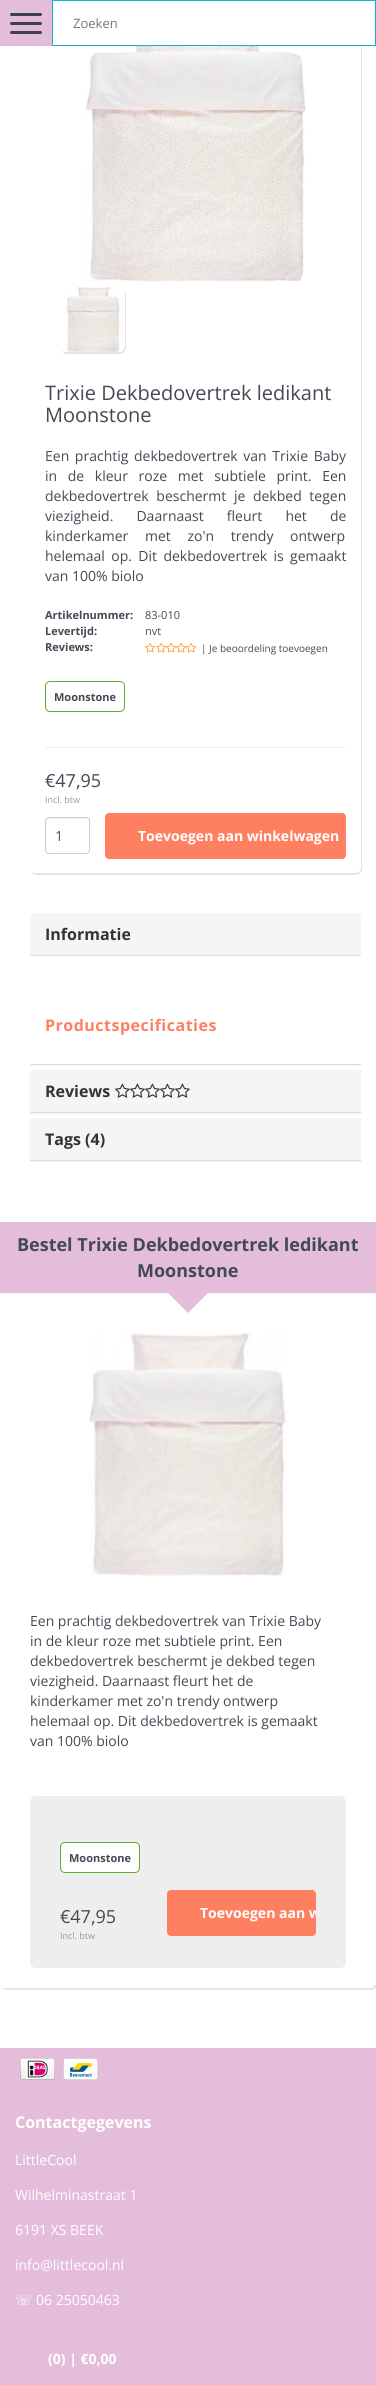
import math
import cairo



def draw_spaced(context, x, y, s, letter, word):
    context.move_to(x, y)
    for ch in s:
        context.show_text(ch)
        context.rel_move_to(letter + word * (ch == ' '), 0)


def rounded_rect(context, x, y, w, h, r):
    context.new_sub_path()
    for i, (u, v) in enumerate([(x + w - r, y + h - r), (x + r, y + h - r), (x + r, y + r), (x + w - r, y + r)]):
        context.arc(u, v, r, i * math.pi / 2, (i + 1) * math.pi / 2)
    context.close_path()


def draw_shadow(context, x, y, w, h, r, blur, alpha):
    context.push_group_with_content(cairo.Content.ALPHA)
    context.set_operator(cairo.Operator.SOURCE)
    for i in range(15, -16, -2):
        e = blur * i / 6
        if min(w, h) + 2 * e > 0:
            context.set_source_rgba(0, 0, 0, alpha * math.erfc((i - 1) / 8.5) / 2)
            rounded_rect(context, x - e, y - e, w + 2 * e, h + 2 * e, max(0, min(r + e + blur * .6, min(w, h) / 2 + e)))
            context.fill()
    context.mask(context.pop_group())


def draw_image(context, path, x, y, w, h):
    context.save()
    context.set_source_surface(cairo.ImageSurface.create_from_png(path), x, y)
    context.rectangle(x, y, w, h)
    context.fill()
    context.restore()


def draw(context):
    context.set_source_rgb(1, 1, 1)
    context.paint()
    context.set_source_rgb(229 / 255, 229 / 255, 229 / 255)
    context.new_path()
    context.move_to(31, 871)
    context.curve_to(32, 873, 34, 875, 37, 875)
    context.line_to(356, 875)
    context.curve_to(359, 875, 362, 872, 362, 869)
    context.line_to(362, -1)
    context.curve_to(362, -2, 362, -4, 361, -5)
    context.line_to(361, 867)
    context.curve_to(361, 870, 358, 873, 355, 873)
    context.line_to(36, 873)
    context.curve_to(34, 873, 32, 872, 31, 871)
    context.close_path()
    context.fill()
    context.set_source_rgb(1, 1, 1)
    rounded_rect(context, 30, -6, 331, 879, 6)
    context.fill()
    context.set_source_rgb(228 / 255, 189 / 255, 218 / 255)
    context.rectangle(0, 0, 52, 46)
    context.fill()
    context.set_source_rgb(60 / 255, 66 / 255, 75 / 255)
    rounded_rect(context, 10, 13, 32, 3, 1.5)
    context.fill()
    rounded_rect(context, 10, 22, 32, 3, 1.5)
    context.fill()
    rounded_rect(context, 10, 31, 32, 3, 1.5)
    context.fill()
    context.set_source_rgb(1, 1, 1)
    context.rectangle(361, 1, 1, 44)
    context.fill()
    context.rectangle(52.5, 0.5, 323, 45)
    context.set_source_rgb(28 / 255, 174 / 255, 210 / 255)
    context.set_line_width(1)
    context.stroke()
    draw_image(context, "images/1.png", 85, 46, 221, 236)
    context.set_source_rgb(229 / 255, 229 / 255, 229 / 255)
    context.new_path()
    context.move_to(61, 350)
    context.curve_to(62, 352, 64, 354, 67, 354)
    context.line_to(120, 354)
    context.curve_to(123, 354, 126, 351, 126, 348)
    context.line_to(126, 295)
    context.curve_to(126, 294, 126, 292, 125, 291)
    context.line_to(125, 346)
    context.curve_to(125, 349, 122, 352, 119, 352)
    context.line_to(66, 352)
    context.curve_to(64, 352, 62, 351, 61, 350)
    context.close_path()
    context.fill()
    draw_image(context, "images/2.png", 63, 287, 62, 65)
    draw_image(context, "images/3.png", 145, 642, 11, 11)
    draw_image(context, "images/3.png", 156, 642, 11, 11)
    draw_image(context, "images/4.png", 166, 642, 11, 11)
    draw_image(context, "images/4.png", 176, 642, 11, 11)
    draw_image(context, "images/4.png", 186, 642, 11, 11)
    context.set_source_rgb(238 / 255, 238 / 255, 238 / 255)
    context.rectangle(45, 747, 301, 1)
    context.fill()
    rounded_rect(context, 45.5, 681.5, 79, 30, 4.5)
    context.set_source_rgb(105 / 255, 170 / 255, 53 / 255)
    context.stroke()
    context.set_source_rgb(236 / 255, 236 / 255, 236 / 255)
    context.new_path()
    context.move_to(49, 819)
    context.line_to(86, 819)
    context.curve_to(88, 819, 89, 820, 89, 822)
    context.curve_to(89, 817, 84, 818, 80, 818)
    context.line_to(55, 818)
    context.curve_to(51, 818, 46, 817, 46, 822)
    context.curve_to(46, 820, 47, 819, 49, 819)
    context.close_path()
    context.fill()
    rounded_rect(context, 45.5, 817.5, 44, 36, 3.5)
    context.set_source_rgb(204 / 255, 204 / 255, 204 / 255)
    context.stroke()
    context.set_source_rgb(1, 128 / 255, 96 / 255)
    rounded_rect(context, 105, 813, 241, 46, 4)
    context.fill()
    context.save()
    context.rectangle(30, 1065, 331, 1)
    context.clip()
    context.set_source_rgb(0, 0, 0)
    draw_shadow(context, 30, 914, 331, 152, 0, 0.5, 0.05)
    context.restore()
    context.set_source_rgb(221 / 255, 221 / 255, 221 / 255)
    context.rectangle(30, 1064, 331, 1)
    context.fill()
    context.set_source_rgb(245 / 255, 245 / 255, 245 / 255)
    context.new_path()
    context.move_to(33, 913)
    context.line_to(358, 913)
    context.curve_to(359.5, 913, 361, 914.5, 361, 916)
    context.line_to(361, 955)
    context.line_to(30, 955)
    context.line_to(30, 916)
    context.curve_to(30, 914.5, 31.5, 913, 33, 913)
    context.close_path()
    context.fill()
    context.set_source_rgb(221 / 255, 221 / 255, 221 / 255)
    context.rectangle(30, 955, 331, 1)
    context.fill()
    context.set_source_rgb(0, 0, 0)
    draw_shadow(context, 30, 1071, 331, 43, 0, 0.5, 0.05)
    context.set_source_rgb(221 / 255, 221 / 255, 221 / 255)
    context.rectangle(30, 1112, 331, 1)
    context.fill()
    context.set_source_rgb(245 / 255, 245 / 255, 245 / 255)
    context.new_path()
    context.move_to(33, 1070)
    context.line_to(358, 1070)
    context.curve_to(359.5, 1070, 361, 1071.5, 361, 1073)
    context.line_to(361, 1112)
    context.line_to(30, 1112)
    context.line_to(30, 1073)
    context.curve_to(30, 1071.5, 31.5, 1070, 33, 1070)
    context.close_path()
    context.fill()
    draw_image(context, "images/5.png", 115, 1083, 15, 15)
    draw_image(context, "images/5.png", 130, 1083, 15, 15)
    draw_image(context, "images/5.png", 145, 1083, 15, 15)
    draw_image(context, "images/5.png", 160, 1083, 15, 15)
    draw_image(context, "images/5.png", 175, 1083, 15, 15)
    context.set_source_rgb(0, 0, 0)
    draw_shadow(context, 30, 1119, 331, 43, 0, 0.5, 0.05)
    context.set_source_rgb(221 / 255, 221 / 255, 221 / 255)
    context.rectangle(30, 1160, 331, 1)
    context.fill()
    context.set_source_rgb(245 / 255, 245 / 255, 245 / 255)
    context.new_path()
    context.move_to(33, 1118)
    context.line_to(358, 1118)
    context.curve_to(359.5, 1118, 361, 1119.5, 361, 1121)
    context.line_to(361, 1160)
    context.line_to(30, 1160)
    context.line_to(30, 1121)
    context.curve_to(30, 1119.5, 31.5, 1118, 33, 1118)
    context.close_path()
    context.fill()
    context.set_source_rgb(229 / 255, 229 / 255, 229 / 255)
    context.new_path()
    context.move_to(1, 1986)
    context.curve_to(2, 1988, 4, 1990, 7, 1990)
    context.line_to(371, 1990)
    context.curve_to(374, 1990, 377, 1987, 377, 1984)
    context.line_to(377, 1229)
    context.curve_to(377, 1228, 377, 1226, 376, 1225)
    context.line_to(376, 1982)
    context.curve_to(376, 1985, 373, 1988, 370, 1988)
    context.line_to(6, 1988)
    context.curve_to(4, 1988, 2, 1987, 1, 1986)
    context.close_path()
    context.fill()
    context.set_source_rgb(1, 1, 1)
    rounded_rect(context, 0, 1221, 376, 767, 6)
    context.fill()
    context.set_source_rgb(228 / 255, 189 / 255, 218 / 255)
    context.rectangle(0, 1222, 376, 71)
    context.fill()
    context.new_path()
    context.move_to(168, 1293)
    context.line_to(208, 1293)
    context.line_to(188, 1313)
    context.close_path()
    context.fill()
    draw_image(context, "images/6.png", 89, 1333, 199, 243)
    context.set_source_rgb(238 / 255, 238 / 255, 238 / 255)
    rounded_rect(context, 30, 1796, 316, 172, 6)
    context.fill()
    context.set_source_rgb(1, 1, 1)
    rounded_rect(context, 60.5, 1842.5, 79, 30, 4.5)
    context.fill_preserve()
    context.set_source_rgb(105 / 255, 170 / 255, 53 / 255)
    context.stroke()
    context.set_source_rgb(1, 128 / 255, 96 / 255)
    rounded_rect(context, 167, 1890, 149, 46, 4)
    context.fill()
    context.set_source_rgb(228 / 255, 189 / 255, 218 / 255)
    context.rectangle(0, 2048, 376, 337)
    context.fill()
    draw_image(context, "images/7.png", 20, 2058, 35, 22)
    draw_image(context, "images/8.png", 63, 2058, 35, 22)
    context.select_font_face("Open Sans")
    context.set_font_size(13)
    context.set_source_rgb(119 / 255, 119 / 255, 119 / 255)
    context.move_to(73, 28)
    context.show_text("Zoeken")
    context.set_font_size(20)
    context.set_source_rgb(67 / 255, 74 / 255, 84 / 255)
    context.move_to(45, 400)
    context.show_text("Trixie Dekbedovertrek ledikant")
    context.move_to(45, 422)
    context.show_text("Moonstone")
    context.set_font_size(14)
    draw_spaced(context, 45, 461, "Een prachtig dekbedovertrek van Trixie Baby", 0, 2)
    draw_spaced(context, 45, 481, "in de kleur roze met subtiele print. Een", 0, 7)
    draw_spaced(context, 45, 501, "dekbedovertrek beschermt je dekbed tegen", 0, 4)
    draw_spaced(context, 45, 521, "viezigheid. Daarnaast fleurt het de", 0, 19.5)
    draw_spaced(context, 45, 541, "kinderkamer met zo'n trendy ontwerp", 0, 13)
    draw_spaced(context, 45, 561, "helemaal op. Dit dekbedovertrek is gemaakt", 0, 2.75)
    context.move_to(45, 581)
    context.show_text("van 100% biolo")
    context.select_font_face("Open Sans", cairo.FontSlant.NORMAL, cairo.FontWeight.BOLD)
    context.set_font_size(11)
    context.move_to(45, 619)
    context.show_text("Artikelnummer:")
    context.select_font_face("Open Sans")
    context.move_to(145, 619)
    context.show_text("83-010")
    context.select_font_face("Open Sans", cairo.FontSlant.NORMAL, cairo.FontWeight.BOLD)
    context.move_to(45, 635)
    context.show_text("Levertijd:")
    context.select_font_face("Open Sans")
    context.move_to(145, 635)
    context.show_text("nvt")
    context.select_font_face("Open Sans", cairo.FontSlant.NORMAL, cairo.FontWeight.BOLD)
    context.move_to(45, 651)
    context.show_text("Reviews:")
    context.select_font_face("Open Sans")
    context.set_font_size(10)
    context.move_to(201, 652)
    context.show_text("| Je beoordeling toevoegen")
    context.select_font_face("Open Sans", cairo.FontSlant.NORMAL, cairo.FontWeight.BOLD)
    context.set_font_size(11)
    context.move_to(54, 701)
    context.show_text("Moonstone")
    context.select_font_face("Open Sans")
    context.set_font_size(18)
    context.move_to(45, 787)
    context.show_text("€47,95")
    context.set_font_size(9)
    context.set_source_rgb(153 / 255, 153 / 255, 153 / 255)
    context.move_to(45, 803)
    context.show_text("Incl. btw")
    context.set_font_size(14)
    context.set_source_rgb(85 / 255, 85 / 255, 85 / 255)
    context.move_to(55, 841)
    context.show_text("1")
    context.select_font_face("Open Sans", cairo.FontSlant.NORMAL, cairo.FontWeight.BOLD)
    context.set_source_rgb(1, 1, 1)
    context.move_to(138, 841)
    context.show_text("Toevoegen aan winkelwagen")
    context.set_font_size(16)
    context.set_source_rgb(51 / 255, 51 / 255, 51 / 255)
    context.move_to(45, 940)
    context.show_text("Informatie")
    context.set_source_rgb(1, 128 / 255, 96 / 255)
    draw_spaced(context, 45, 1031, "Productspecificaties", 0.5, 0)
    context.set_source_rgb(51 / 255, 51 / 255, 51 / 255)
    context.move_to(45, 1097)
    context.show_text("Reviews")
    context.move_to(45, 1145)
    context.show_text("Tags (4)")
    context.set_font_size(18)
    context.set_source_rgb(67 / 255, 74 / 255, 84 / 255)
    context.move_to(17, 1251)
    context.show_text("Bestel Trixie Dekbedovertrek ledikant")
    context.move_to(137, 1277)
    context.show_text("Moonstone")
    context.select_font_face("Open Sans")
    context.set_font_size(14)
    context.move_to(30, 1626)
    context.show_text("Een prachtig dekbedovertrek van Trixie Baby")
    context.move_to(30, 1646)
    context.show_text("in de kleur roze met subtiele print. Een")
    context.move_to(30, 1666)
    context.show_text("dekbedovertrek beschermt je dekbed tegen")
    context.move_to(30, 1686)
    context.show_text("viezigheid. Daarnaast fleurt het de")
    context.move_to(30, 1706)
    context.show_text("kinderkamer met zo'n trendy ontwerp")
    context.move_to(30, 1726)
    context.show_text("helemaal op. Dit dekbedovertrek is gemaakt")
    context.move_to(30, 1746)
    context.show_text("van 100% biolo")
    context.select_font_face("Open Sans", cairo.FontSlant.NORMAL, cairo.FontWeight.BOLD)
    context.set_font_size(11)
    context.move_to(69, 1862)
    context.show_text("Moonstone")
    context.select_font_face("Open Sans")
    context.set_font_size(18)
    context.move_to(60, 1923)
    context.show_text("€47,95")
    context.set_font_size(9)
    context.set_source_rgb(153 / 255, 153 / 255, 153 / 255)
    context.move_to(60, 1939)
    context.show_text("Incl. btw")
    context.save()
    rounded_rect(context, 167, 1890, 149, 46, 4)
    context.clip()
    context.select_font_face("Open Sans", cairo.FontSlant.NORMAL, cairo.FontWeight.BOLD)
    context.set_font_size(14)
    context.set_source_rgb(1, 1, 1)
    context.move_to(200, 1918)
    context.show_text("Toevoegen aan w")
    context.restore()
    context.select_font_face("Open Sans", cairo.FontSlant.NORMAL, cairo.FontWeight.BOLD)
    context.set_font_size(16)
    context.set_source_rgb(1, 1, 1)
    context.move_to(15, 2128)
    context.show_text("Contactgegevens")
    context.select_font_face("Open Sans")
    context.set_font_size(14)
    context.move_to(15, 2165)
    context.show_text("LittleCool")
    context.move_to(15, 2200)
    context.show_text("Wilhelminastraat 1")
    context.move_to(15, 2235)
    context.show_text("6191 XS BEEK")
    context.move_to(15, 2270)
    context.show_text("info@littlecool.nl")
    context.select_font_face("DejaVu Sans")
    context.move_to(15, 2305)
    context.show_text("☏")
    context.select_font_face("Open Sans")
    context.move_to(36, 2305)
    context.show_text("06 25050463")
    context.select_font_face("Open Sans", cairo.FontSlant.NORMAL, cairo.FontWeight.BOLD)
    context.move_to(48, 2364)
    context.show_text("(0) | €0,00")


surface = cairo.ImageSurface(cairo.Format.RGB24, 376, 2385)
context = cairo.Context(surface)
options = cairo.FontOptions()
options.set_hint_metrics(cairo.HintMetrics.OFF)
options.set_hint_style(cairo.HintStyle.NONE)
context.set_font_options(options)
context.set_miter_limit(4)
draw(context)
surface.write_to_png("out.png")
